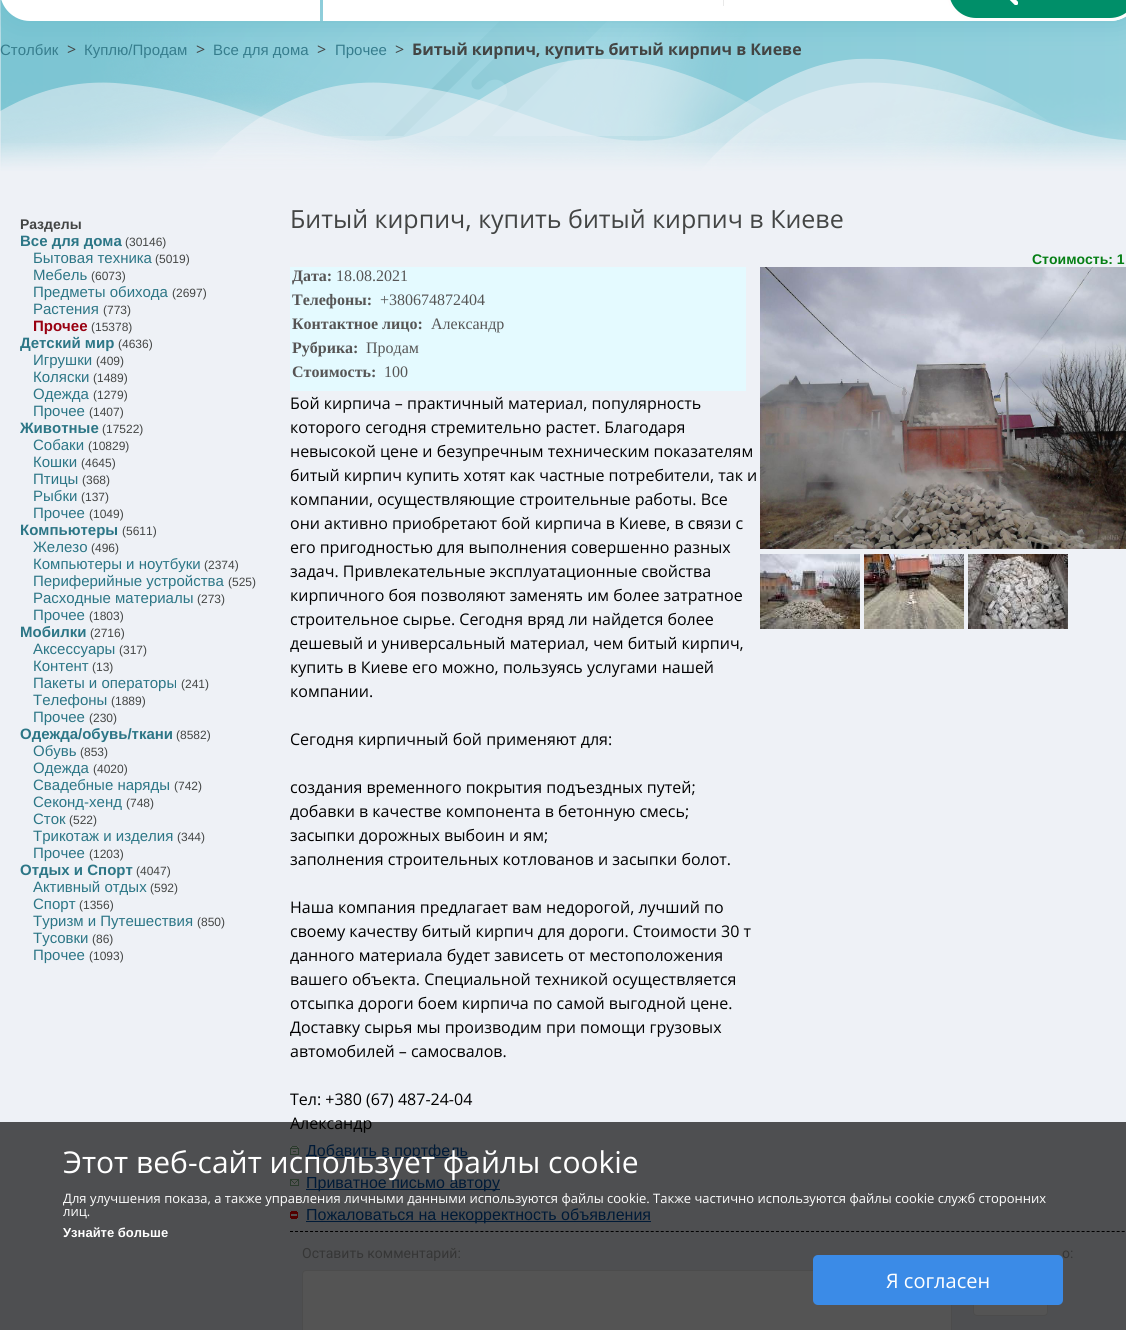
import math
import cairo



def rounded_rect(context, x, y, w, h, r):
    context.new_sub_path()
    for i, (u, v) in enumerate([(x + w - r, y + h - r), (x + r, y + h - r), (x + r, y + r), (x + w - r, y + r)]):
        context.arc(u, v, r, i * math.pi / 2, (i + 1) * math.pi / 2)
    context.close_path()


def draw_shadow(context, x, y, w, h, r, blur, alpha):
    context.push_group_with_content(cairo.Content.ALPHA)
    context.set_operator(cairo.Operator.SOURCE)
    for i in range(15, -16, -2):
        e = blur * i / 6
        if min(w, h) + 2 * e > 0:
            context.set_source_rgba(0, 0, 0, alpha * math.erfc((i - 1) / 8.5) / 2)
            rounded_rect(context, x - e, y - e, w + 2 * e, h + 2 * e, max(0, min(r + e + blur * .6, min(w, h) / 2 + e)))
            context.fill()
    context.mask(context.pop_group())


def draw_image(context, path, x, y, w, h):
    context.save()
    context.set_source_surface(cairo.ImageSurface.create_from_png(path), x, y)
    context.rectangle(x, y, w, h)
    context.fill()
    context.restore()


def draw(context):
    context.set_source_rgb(238 / 255, 241 / 255, 246 / 255)
    context.paint()
    draw_image(context, "images/1.png", 0, 0, 1126, 171)
    context.save()
    context.set_fill_rule(cairo.FillRule.EVEN_ODD)
    context.new_path()
    context.move_to(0, 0)
    context.line_to(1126, 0)
    context.line_to(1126, 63)
    context.line_to(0, 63)
    context.close_path()
    context.move_to(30, -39)
    context.line_to(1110, -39)
    context.curve_to(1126.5, -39, 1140, -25.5, 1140, -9)
    context.curve_to(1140, 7.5, 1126.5, 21, 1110, 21)
    context.line_to(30, 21)
    context.curve_to(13.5, 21, 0, 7.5, 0, -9)
    context.curve_to(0, -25.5, 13.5, -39, 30, -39)
    context.close_path()
    context.clip()
    context.set_source_rgb(105 / 255, 188 / 255, 203 / 255)
    draw_shadow(context, 0, -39, 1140, 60, 30, 13.5, 0.75)
    context.restore()
    context.set_source_rgb(1, 1, 1)
    context.new_path()
    context.move_to(30, -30)
    context.line_to(320, -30)
    context.line_to(320, 21)
    context.line_to(30, 21)
    context.curve_to(13.5, 21, 0, 7.5, 0, -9)
    context.line_to(0, 0)
    context.curve_to(0, -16.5, 13.5, -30, 30, -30)
    context.close_path()
    context.fill()
    context.new_path()
    context.move_to(323, -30)
    context.line_to(1110, -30)
    context.curve_to(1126.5, -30, 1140, -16.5, 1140, 0)
    context.line_to(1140, -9)
    context.curve_to(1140, 7.5, 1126.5, 21, 1110, 21)
    context.line_to(323, 21)
    context.close_path()
    context.fill()
    context.set_source_rgb(233 / 255, 233 / 255, 233 / 255)
    context.rectangle(723, 0, 1, 6)
    context.fill()
    context.set_source_rgb(0, 143 / 255, 105 / 255)
    rounded_rect(context, 947.5, -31.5, 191, 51, 28.5)
    context.fill_preserve()
    context.set_source_rgb(1, 253 / 255, 253 / 255)
    context.set_line_width(3)
    context.stroke()
    draw_image(context, "images/2.png", 1009, 0, 9, 5)
    gradient = cairo.LinearGradient(563, 206, 563, 141)
    gradient.add_color_stop_rgba(0, 238 / 255, 241 / 255, 246 / 255, 0.59)
    gradient.add_color_stop_rgba(0.4, 238 / 255, 241 / 255, 246 / 255, 0.73)
    gradient.add_color_stop_rgba(0.55, 238 / 255, 241 / 255, 246 / 255, 0.94)
    gradient.add_color_stop_rgba(1, 238 / 255, 241 / 255, 246 / 255, 0)
    context.set_source(gradient)
    context.rectangle(0, 143, 1126, 28)
    context.fill()
    context.set_source_rgb(228 / 255, 250 / 255, 1)
    context.rectangle(290, 267, 456, 124)
    context.fill()
    draw_image(context, "images/3.png", 760, 267, 366, 282)
    draw_image(context, "images/4.png", 760, 554, 100, 75)
    draw_image(context, "images/5.png", 864, 554, 100, 75)
    draw_image(context, "images/6.png", 968, 554, 100, 75)
    draw_image(context, "images/7.png", 290, 1146, 9, 9)
    context.set_source_rgb(0, 80 / 255, 166 / 255)
    context.rectangle(306, 1157, 162, 1)
    context.fill()
    draw_image(context, "images/8.png", 290, 1179, 9, 7)
    context.rectangle(306, 1189, 194, 1)
    context.fill()
    draw_image(context, "images/9.png", 290, 1211, 8, 8)
    context.rectangle(306, 1221, 345, 1)
    context.fill()
    context.new_path()
    context.move_to(290, 1231.5)
    context.line_to(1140, 1231.5)
    context.set_source_rgb(0, 0, 0)
    context.set_line_width(1)
    context.set_dash([3, 2.01])
    context.stroke()
    context.set_source_rgb(1, 1, 1)
    rounded_rect(context, 302.5, 1270.5, 649, 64, 3.5)
    context.fill_preserve()
    context.set_source_rgb(231 / 255, 231 / 255, 231 / 255)
    context.set_dash([])
    context.stroke()
    context.set_source_rgb(1, 1, 1)
    rounded_rect(context, 973.5, 1270.5, 74, 45, 3.5)
    context.fill_preserve()
    context.set_source_rgb(231 / 255, 231 / 255, 231 / 255)
    context.stroke()
    context.select_font_face("Liberation Sans")
    context.set_font_size(15)
    context.set_source_rgb(54 / 255, 125 / 255, 141 / 255)
    context.move_to(0, 55)
    context.show_text("Столбик")
    context.select_font_face("Open Sans")
    context.set_font_size(16)
    context.set_source_rgb(67 / 255, 69 / 255, 68 / 255)
    context.move_to(67, 55)
    context.show_text(">")
    context.select_font_face("Liberation Sans")
    context.set_font_size(15)
    context.set_source_rgb(54 / 255, 125 / 255, 141 / 255)
    context.move_to(84, 55)
    context.show_text("Куплю/Продам")
    context.select_font_face("Open Sans")
    context.set_font_size(16)
    context.set_source_rgb(67 / 255, 69 / 255, 68 / 255)
    context.move_to(196, 55)
    context.show_text(">")
    context.select_font_face("Liberation Sans")
    context.set_font_size(15)
    context.set_source_rgb(54 / 255, 125 / 255, 141 / 255)
    context.move_to(213, 55)
    context.show_text("Все для дома")
    context.select_font_face("Open Sans")
    context.set_font_size(16)
    context.set_source_rgb(67 / 255, 69 / 255, 68 / 255)
    context.move_to(317, 55)
    context.show_text(">")
    context.select_font_face("Liberation Sans")
    context.set_font_size(15)
    context.set_source_rgb(54 / 255, 125 / 255, 141 / 255)
    context.move_to(335, 55)
    context.show_text("Прочее")
    context.select_font_face("Open Sans")
    context.set_font_size(16)
    context.set_source_rgb(67 / 255, 69 / 255, 68 / 255)
    context.move_to(395, 55)
    context.show_text(">")
    context.select_font_face("Open Sans", cairo.FontSlant.NORMAL, cairo.FontWeight.BOLD)
    context.move_to(412, 55)
    context.show_text("Битый кирпич, купить битый кирпич в Киеве")
    context.select_font_face("Liberation Sans", cairo.FontSlant.NORMAL, cairo.FontWeight.BOLD)
    context.set_font_size(14)
    context.move_to(20, 229)
    context.show_text("Разделы")
    context.set_font_size(15)
    context.set_source_rgb(44 / 255, 118 / 255, 134 / 255)
    context.move_to(20, 246)
    context.show_text("Все для дома")
    context.select_font_face("Liberation Sans")
    context.set_font_size(12)
    context.set_source_rgb(67 / 255, 69 / 255, 68 / 255)
    context.move_to(125, 246)
    context.show_text("(30146)")
    context.set_font_size(15)
    context.set_source_rgb(44 / 255, 118 / 255, 134 / 255)
    context.move_to(33, 263)
    context.show_text("Бытовая техника")
    context.set_font_size(12)
    context.set_source_rgb(67 / 255, 69 / 255, 68 / 255)
    context.move_to(155, 263)
    context.show_text("(5019)")
    context.set_font_size(15)
    context.set_source_rgb(44 / 255, 118 / 255, 134 / 255)
    context.move_to(33, 280)
    context.show_text("Мебель")
    context.set_font_size(12)
    context.set_source_rgb(67 / 255, 69 / 255, 68 / 255)
    context.move_to(91, 280)
    context.show_text("(6073)")
    context.set_font_size(15)
    context.set_source_rgb(44 / 255, 118 / 255, 134 / 255)
    context.move_to(33, 297)
    context.show_text("Предметы обихода")
    context.set_font_size(12)
    context.set_source_rgb(67 / 255, 69 / 255, 68 / 255)
    context.move_to(172, 297)
    context.show_text("(2697)")
    context.set_font_size(15)
    context.set_source_rgb(44 / 255, 118 / 255, 134 / 255)
    context.move_to(33, 314)
    context.show_text("Растения")
    context.set_font_size(12)
    context.set_source_rgb(67 / 255, 69 / 255, 68 / 255)
    context.move_to(103, 314)
    context.show_text("(773)")
    context.select_font_face("Liberation Sans", cairo.FontSlant.NORMAL, cairo.FontWeight.BOLD)
    context.set_font_size(15)
    context.set_source_rgb(153 / 255, 0, 17 / 255)
    context.move_to(33, 331)
    context.show_text("Прочее")
    context.select_font_face("Liberation Sans")
    context.set_font_size(12)
    context.set_source_rgb(67 / 255, 69 / 255, 68 / 255)
    context.move_to(91, 331)
    context.show_text("(15378)")
    context.select_font_face("Liberation Sans", cairo.FontSlant.NORMAL, cairo.FontWeight.BOLD)
    context.set_font_size(15)
    context.set_source_rgb(44 / 255, 118 / 255, 134 / 255)
    context.move_to(20, 348)
    context.show_text("Детский мир")
    context.select_font_face("Liberation Sans")
    context.set_font_size(12)
    context.set_source_rgb(67 / 255, 69 / 255, 68 / 255)
    context.move_to(118, 348)
    context.show_text("(4636)")
    context.set_font_size(15)
    context.set_source_rgb(44 / 255, 118 / 255, 134 / 255)
    context.move_to(33, 365)
    context.show_text("Игрушки")
    context.set_font_size(12)
    context.set_source_rgb(67 / 255, 69 / 255, 68 / 255)
    context.move_to(96, 365)
    context.show_text("(409)")
    context.set_font_size(15)
    context.set_source_rgb(44 / 255, 118 / 255, 134 / 255)
    context.move_to(33, 382)
    context.show_text("Коляски")
    context.set_font_size(12)
    context.set_source_rgb(67 / 255, 69 / 255, 68 / 255)
    context.move_to(93, 382)
    context.show_text("(1489)")
    context.set_font_size(15)
    context.set_source_rgb(44 / 255, 118 / 255, 134 / 255)
    context.move_to(33, 399)
    context.show_text("Одежда")
    context.set_font_size(12)
    context.set_source_rgb(67 / 255, 69 / 255, 68 / 255)
    context.move_to(93, 399)
    context.show_text("(1279)")
    context.set_font_size(15)
    context.set_source_rgb(44 / 255, 118 / 255, 134 / 255)
    context.move_to(33, 416)
    context.show_text("Прочее")
    context.set_font_size(12)
    context.set_source_rgb(67 / 255, 69 / 255, 68 / 255)
    context.move_to(89, 416)
    context.show_text("(1407)")
    context.select_font_face("Liberation Sans", cairo.FontSlant.NORMAL, cairo.FontWeight.BOLD)
    context.set_font_size(15)
    context.set_source_rgb(44 / 255, 118 / 255, 134 / 255)
    context.move_to(20, 433)
    context.show_text("Животные")
    context.select_font_face("Liberation Sans")
    context.set_font_size(12)
    context.set_source_rgb(67 / 255, 69 / 255, 68 / 255)
    context.move_to(102, 433)
    context.show_text("(17522)")
    context.set_font_size(15)
    context.set_source_rgb(44 / 255, 118 / 255, 134 / 255)
    context.move_to(33, 450)
    context.show_text("Собаки")
    context.set_font_size(12)
    context.set_source_rgb(67 / 255, 69 / 255, 68 / 255)
    context.move_to(88, 450)
    context.show_text("(10829)")
    context.set_font_size(15)
    context.set_source_rgb(44 / 255, 118 / 255, 134 / 255)
    context.move_to(33, 467)
    context.show_text("Кошки")
    context.set_font_size(12)
    context.set_source_rgb(67 / 255, 69 / 255, 68 / 255)
    context.move_to(81, 467)
    context.show_text("(4645)")
    context.set_font_size(15)
    context.set_source_rgb(44 / 255, 118 / 255, 134 / 255)
    context.move_to(33, 484)
    context.show_text("Птицы")
    context.set_font_size(12)
    context.set_source_rgb(67 / 255, 69 / 255, 68 / 255)
    context.move_to(82, 484)
    context.show_text("(368)")
    context.set_font_size(15)
    context.set_source_rgb(44 / 255, 118 / 255, 134 / 255)
    context.move_to(33, 501)
    context.show_text("Рыбки")
    context.set_font_size(12)
    context.set_source_rgb(67 / 255, 69 / 255, 68 / 255)
    context.move_to(81, 501)
    context.show_text("(137)")
    context.set_font_size(15)
    context.set_source_rgb(44 / 255, 118 / 255, 134 / 255)
    context.move_to(33, 518)
    context.show_text("Прочее")
    context.set_font_size(12)
    context.set_source_rgb(67 / 255, 69 / 255, 68 / 255)
    context.move_to(89, 518)
    context.show_text("(1049)")
    context.select_font_face("Liberation Sans", cairo.FontSlant.NORMAL, cairo.FontWeight.BOLD)
    context.set_font_size(15)
    context.set_source_rgb(44 / 255, 118 / 255, 134 / 255)
    context.move_to(20, 535)
    context.show_text("Компьютеры")
    context.select_font_face("Liberation Sans")
    context.set_font_size(12)
    context.set_source_rgb(67 / 255, 69 / 255, 68 / 255)
    context.move_to(122, 535)
    context.show_text("(5611)")
    context.set_font_size(15)
    context.set_source_rgb(44 / 255, 118 / 255, 134 / 255)
    context.move_to(33, 552)
    context.show_text("Железо")
    context.set_font_size(12)
    context.set_source_rgb(67 / 255, 69 / 255, 68 / 255)
    context.move_to(91, 552)
    context.show_text("(496)")
    context.set_font_size(15)
    context.set_source_rgb(44 / 255, 118 / 255, 134 / 255)
    context.move_to(33, 569)
    context.show_text("Компьютеры и ноутбуки")
    context.set_font_size(12)
    context.set_source_rgb(67 / 255, 69 / 255, 68 / 255)
    context.move_to(204, 569)
    context.show_text("(2374)")
    context.set_font_size(15)
    context.set_source_rgb(44 / 255, 118 / 255, 134 / 255)
    context.move_to(33, 586)
    context.show_text("Периферийные устройства")
    context.set_font_size(12)
    context.set_source_rgb(67 / 255, 69 / 255, 68 / 255)
    context.move_to(228, 586)
    context.show_text("(525)")
    context.set_font_size(15)
    context.set_source_rgb(44 / 255, 118 / 255, 134 / 255)
    context.move_to(33, 603)
    context.show_text("Расходные материалы")
    context.set_font_size(12)
    context.set_source_rgb(67 / 255, 69 / 255, 68 / 255)
    context.move_to(197, 603)
    context.show_text("(273)")
    context.set_font_size(15)
    context.set_source_rgb(44 / 255, 118 / 255, 134 / 255)
    context.move_to(33, 620)
    context.show_text("Прочее")
    context.set_font_size(12)
    context.set_source_rgb(67 / 255, 69 / 255, 68 / 255)
    context.move_to(89, 620)
    context.show_text("(1803)")
    context.select_font_face("Liberation Sans", cairo.FontSlant.NORMAL, cairo.FontWeight.BOLD)
    context.set_font_size(15)
    context.set_source_rgb(44 / 255, 118 / 255, 134 / 255)
    context.move_to(20, 637)
    context.show_text("Мобилки")
    context.select_font_face("Liberation Sans")
    context.set_font_size(12)
    context.set_source_rgb(67 / 255, 69 / 255, 68 / 255)
    context.move_to(90, 637)
    context.show_text("(2716)")
    context.set_font_size(15)
    context.set_source_rgb(44 / 255, 118 / 255, 134 / 255)
    context.move_to(33, 654)
    context.show_text("Аксессуары")
    context.set_font_size(12)
    context.set_source_rgb(67 / 255, 69 / 255, 68 / 255)
    context.move_to(119, 654)
    context.show_text("(317)")
    context.set_font_size(15)
    context.set_source_rgb(44 / 255, 118 / 255, 134 / 255)
    context.move_to(33, 671)
    context.show_text("Контент")
    context.set_font_size(12)
    context.set_source_rgb(67 / 255, 69 / 255, 68 / 255)
    context.move_to(92, 671)
    context.show_text("(13)")
    context.set_font_size(15)
    context.set_source_rgb(44 / 255, 118 / 255, 134 / 255)
    context.move_to(33, 688)
    context.show_text("Пакеты и операторы")
    context.set_font_size(12)
    context.set_source_rgb(67 / 255, 69 / 255, 68 / 255)
    context.move_to(181, 688)
    context.show_text("(241)")
    context.set_font_size(15)
    context.set_source_rgb(44 / 255, 118 / 255, 134 / 255)
    context.move_to(33, 705)
    context.show_text("Телефоны")
    context.set_font_size(12)
    context.set_source_rgb(67 / 255, 69 / 255, 68 / 255)
    context.move_to(111, 705)
    context.show_text("(1889)")
    context.set_font_size(15)
    context.set_source_rgb(44 / 255, 118 / 255, 134 / 255)
    context.move_to(33, 722)
    context.show_text("Прочее")
    context.set_font_size(12)
    context.set_source_rgb(67 / 255, 69 / 255, 68 / 255)
    context.move_to(89, 722)
    context.show_text("(230)")
    context.select_font_face("Liberation Sans", cairo.FontSlant.NORMAL, cairo.FontWeight.BOLD)
    context.set_font_size(15)
    context.set_source_rgb(44 / 255, 118 / 255, 134 / 255)
    context.move_to(20, 739)
    context.show_text("Одежда/обувь/ткани")
    context.select_font_face("Liberation Sans")
    context.set_font_size(12)
    context.set_source_rgb(67 / 255, 69 / 255, 68 / 255)
    context.move_to(176, 739)
    context.show_text("(8582)")
    context.set_font_size(15)
    context.set_source_rgb(44 / 255, 118 / 255, 134 / 255)
    context.move_to(33, 756)
    context.show_text("Обувь")
    context.set_font_size(12)
    context.set_source_rgb(67 / 255, 69 / 255, 68 / 255)
    context.move_to(80, 756)
    context.show_text("(853)")
    context.set_font_size(15)
    context.set_source_rgb(44 / 255, 118 / 255, 134 / 255)
    context.move_to(33, 773)
    context.show_text("Одежда")
    context.set_font_size(12)
    context.set_source_rgb(67 / 255, 69 / 255, 68 / 255)
    context.move_to(93, 773)
    context.show_text("(4020)")
    context.set_font_size(15)
    context.set_source_rgb(44 / 255, 118 / 255, 134 / 255)
    context.move_to(33, 790)
    context.show_text("Свадебные наряды")
    context.set_font_size(12)
    context.set_source_rgb(67 / 255, 69 / 255, 68 / 255)
    context.move_to(174, 790)
    context.show_text("(742)")
    context.set_font_size(15)
    context.set_source_rgb(44 / 255, 118 / 255, 134 / 255)
    context.move_to(33, 807)
    context.show_text("Секонд-хенд")
    context.set_font_size(12)
    context.set_source_rgb(67 / 255, 69 / 255, 68 / 255)
    context.move_to(126, 807)
    context.show_text("(748)")
    context.set_font_size(15)
    context.set_source_rgb(44 / 255, 118 / 255, 134 / 255)
    context.move_to(33, 824)
    context.show_text("Сток")
    context.set_font_size(12)
    context.set_source_rgb(67 / 255, 69 / 255, 68 / 255)
    context.move_to(69, 824)
    context.show_text("(522)")
    context.set_font_size(15)
    context.set_source_rgb(44 / 255, 118 / 255, 134 / 255)
    context.move_to(33, 841)
    context.show_text("Трикотаж и изделия")
    context.set_font_size(12)
    context.set_source_rgb(67 / 255, 69 / 255, 68 / 255)
    context.move_to(177, 841)
    context.show_text("(344)")
    context.set_font_size(15)
    context.set_source_rgb(44 / 255, 118 / 255, 134 / 255)
    context.move_to(33, 858)
    context.show_text("Прочее")
    context.set_font_size(12)
    context.set_source_rgb(67 / 255, 69 / 255, 68 / 255)
    context.move_to(89, 858)
    context.show_text("(1203)")
    context.select_font_face("Liberation Sans", cairo.FontSlant.NORMAL, cairo.FontWeight.BOLD)
    context.set_font_size(15)
    context.set_source_rgb(44 / 255, 118 / 255, 134 / 255)
    context.move_to(20, 875)
    context.show_text("Отдых и Спорт")
    context.select_font_face("Liberation Sans")
    context.set_font_size(12)
    context.set_source_rgb(67 / 255, 69 / 255, 68 / 255)
    context.move_to(136, 875)
    context.show_text("(4047)")
    context.set_font_size(15)
    context.set_source_rgb(44 / 255, 118 / 255, 134 / 255)
    context.move_to(33, 892)
    context.show_text("Активный отдых")
    context.set_font_size(12)
    context.set_source_rgb(67 / 255, 69 / 255, 68 / 255)
    context.move_to(150, 892)
    context.show_text("(592)")
    context.set_font_size(15)
    context.set_source_rgb(44 / 255, 118 / 255, 134 / 255)
    context.move_to(33, 909)
    context.show_text("Спорт")
    context.set_font_size(12)
    context.set_source_rgb(67 / 255, 69 / 255, 68 / 255)
    context.move_to(79, 909)
    context.show_text("(1356)")
    context.set_font_size(15)
    context.set_source_rgb(44 / 255, 118 / 255, 134 / 255)
    context.move_to(33, 926)
    context.show_text("Туризм и Путешествия")
    context.set_font_size(12)
    context.set_source_rgb(67 / 255, 69 / 255, 68 / 255)
    context.move_to(197, 926)
    context.show_text("(850)")
    context.set_font_size(15)
    context.set_source_rgb(44 / 255, 118 / 255, 134 / 255)
    context.move_to(33, 943)
    context.show_text("Тусовки")
    context.set_font_size(12)
    context.set_source_rgb(67 / 255, 69 / 255, 68 / 255)
    context.move_to(92, 943)
    context.show_text("(86)")
    context.set_font_size(15)
    context.set_source_rgb(44 / 255, 118 / 255, 134 / 255)
    context.move_to(33, 960)
    context.show_text("Прочее")
    context.set_font_size(12)
    context.set_source_rgb(67 / 255, 69 / 255, 68 / 255)
    context.move_to(89, 960)
    context.show_text("(1093)")
    context.select_font_face("Open Sans")
    context.set_font_size(25)
    context.move_to(290, 228)
    context.show_text("Битый кирпич, купить битый кирпич в Киеве")
    context.select_font_face("Liberation Sans", cairo.FontSlant.NORMAL, cairo.FontWeight.BOLD)
    context.set_font_size(14)
    context.set_source_rgb(6 / 255, 127 / 255, 21 / 255)
    context.move_to(1032, 264)
    context.show_text("Стоимость: 1")
    context.select_font_face("Liberation Serif", cairo.FontSlant.NORMAL, cairo.FontWeight.BOLD)
    context.set_font_size(16)
    context.set_source_rgb(86 / 255, 85 / 255, 85 / 255)
    context.move_to(292, 281)
    context.show_text("Дата:")
    context.select_font_face("Liberation Serif")
    context.move_to(336, 281)
    context.show_text("18.08.2021")
    context.select_font_face("Liberation Serif", cairo.FontSlant.NORMAL, cairo.FontWeight.BOLD)
    context.move_to(292, 305)
    context.show_text("Телефоны:")
    context.select_font_face("Liberation Serif")
    context.move_to(380, 305)
    context.show_text("+380674872404")
    context.select_font_face("Liberation Serif", cairo.FontSlant.NORMAL, cairo.FontWeight.BOLD)
    context.move_to(292, 329)
    context.show_text("Контактное лицо:")
    context.select_font_face("Liberation Serif")
    context.move_to(431, 329)
    context.show_text("Александр")
    context.select_font_face("Liberation Serif", cairo.FontSlant.NORMAL, cairo.FontWeight.BOLD)
    context.move_to(292, 353)
    context.show_text("Рубрика:")
    context.select_font_face("Liberation Serif")
    context.move_to(366, 353)
    context.show_text("Продам")
    context.select_font_face("Liberation Serif", cairo.FontSlant.NORMAL, cairo.FontWeight.BOLD)
    context.move_to(292, 377)
    context.show_text("Стоимость:")
    context.select_font_face("Liberation Serif")
    context.move_to(384, 377)
    context.show_text("100")
    context.select_font_face("Open Sans")
    context.set_source_rgb(0, 0, 0)
    context.move_to(290, 409)
    context.show_text("Бой кирпича – практичный материал, популярность")
    context.move_to(290, 433)
    context.show_text("которого сегодня стремительно растет. Благодаря")
    context.move_to(290, 457)
    context.show_text("невысокой цене и безупречным техническим показателям")
    context.move_to(290, 481)
    context.show_text("битый кирпич купить хотят как частные потребители, так и")
    context.move_to(290, 505)
    context.show_text("компании, осуществляющие строительные работы. Все")
    context.move_to(290, 529)
    context.show_text("они активно приобретают бой кирпича в Киеве, в связи с")
    context.move_to(290, 553)
    context.show_text("его пригодностью для выполнения совершенно разных")
    context.move_to(290, 577)
    context.show_text("задач. Привлекательные эксплуатационные свойства")
    context.move_to(290, 601)
    context.show_text("кирпичного боя позволяют заменять им более затратное")
    context.move_to(290, 625)
    context.show_text("строительное сырье. Сегодня вряд ли найдется более")
    context.move_to(290, 649)
    context.show_text("дешевый и универсальный материал, чем битый кирпич,")
    context.move_to(290, 673)
    context.show_text("купить в Киеве его можно, пользуясь услугами нашей")
    context.move_to(290, 697)
    context.show_text("компании.")
    context.move_to(290, 745)
    context.show_text("Сегодня кирпичный бой применяют для:")
    context.move_to(290, 793)
    context.show_text("создания временного покрытия подъездных путей;")
    context.move_to(290, 817)
    context.show_text("добавки в качестве компонента в бетонную смесь;")
    context.move_to(290, 841)
    context.show_text("засыпки дорожных выбоин и ям;")
    context.move_to(290, 865)
    context.show_text("заполнения строительных котлованов и засыпки болот.")
    context.move_to(290, 913)
    context.show_text("Наша компания предлагает вам недорогой, лучший по")
    context.move_to(290, 937)
    context.show_text("своему качеству битый кирпич для дороги. Стоимости 30 т")
    context.move_to(290, 961)
    context.show_text("данного материала будет зависеть от местоположения")
    context.move_to(290, 985)
    context.show_text("вашего объекта. Специальной техникой осуществляется")
    context.move_to(290, 1009)
    context.show_text("отсыпка дороги боем кирпича по самой выгодной цене.")
    context.move_to(290, 1033)
    context.show_text("Доставку сырья мы производим при помощи грузовых")
    context.move_to(290, 1057)
    context.show_text("автомобилей – самосвалов.")
    context.move_to(290, 1105)
    context.show_text("Тел: +380 (67) 487-24-04")
    context.move_to(290, 1129)
    context.show_text("Александр")
    context.select_font_face("Liberation Sans")
    context.set_source_rgb(0, 80 / 255, 166 / 255)
    context.move_to(306, 1156)
    context.show_text("Добавить в портфель")
    context.move_to(306, 1188)
    context.show_text("Приватное письмо автору")
    context.move_to(306, 1220)
    context.show_text("Пожаловаться на некорректность объявления")
    context.select_font_face("Roboto")
    context.set_font_size(14)
    context.set_source_rgb(163 / 255, 164 / 255, 164 / 255)
    context.move_to(302, 1258)
    context.show_text("Оставить комментарий:")
    context.move_to(1062, 1258)
    context.show_text("о:")
    context.set_source_rgba(0, 0, 0, 0.67)
    context.rectangle(0, 1122, 1126, 208)
    context.fill()
    context.select_font_face("Open Sans")
    context.set_font_size(30)
    context.set_source_rgb(1, 1, 1)
    context.move_to(63, 1173)
    context.show_text("Этот веб-сайт использует файлы cookie")
    context.set_font_size(13)
    context.move_to(63, 1203)
    context.show_text("Для улучшения показа, а также управления личными данными используются файлы cookie. Также частично используются файлы cookie служб сторонних")
    context.move_to(63, 1216)
    context.show_text("лиц.")
    context.select_font_face("Liberation Sans", cairo.FontSlant.NORMAL, cairo.FontWeight.BOLD)
    context.move_to(63, 1237)
    context.show_text("Узнайте больше")
    context.set_source_rgb(59 / 255, 139 / 255, 231 / 255)
    rounded_rect(context, 813, 1255, 250, 50, 5)
    context.fill()
    context.select_font_face("Open Sans")
    context.set_font_size(20)
    context.set_source_rgb(1, 1, 1)
    context.move_to(886, 1288)
    context.show_text("Я согласен")


surface = cairo.ImageSurface(cairo.Format.RGB24, 1126, 1330)
context = cairo.Context(surface)
options = cairo.FontOptions()
options.set_hint_metrics(cairo.HintMetrics.OFF)
options.set_hint_style(cairo.HintStyle.NONE)
context.set_font_options(options)
context.set_miter_limit(4)
draw(context)
surface.write_to_png("out.png")
